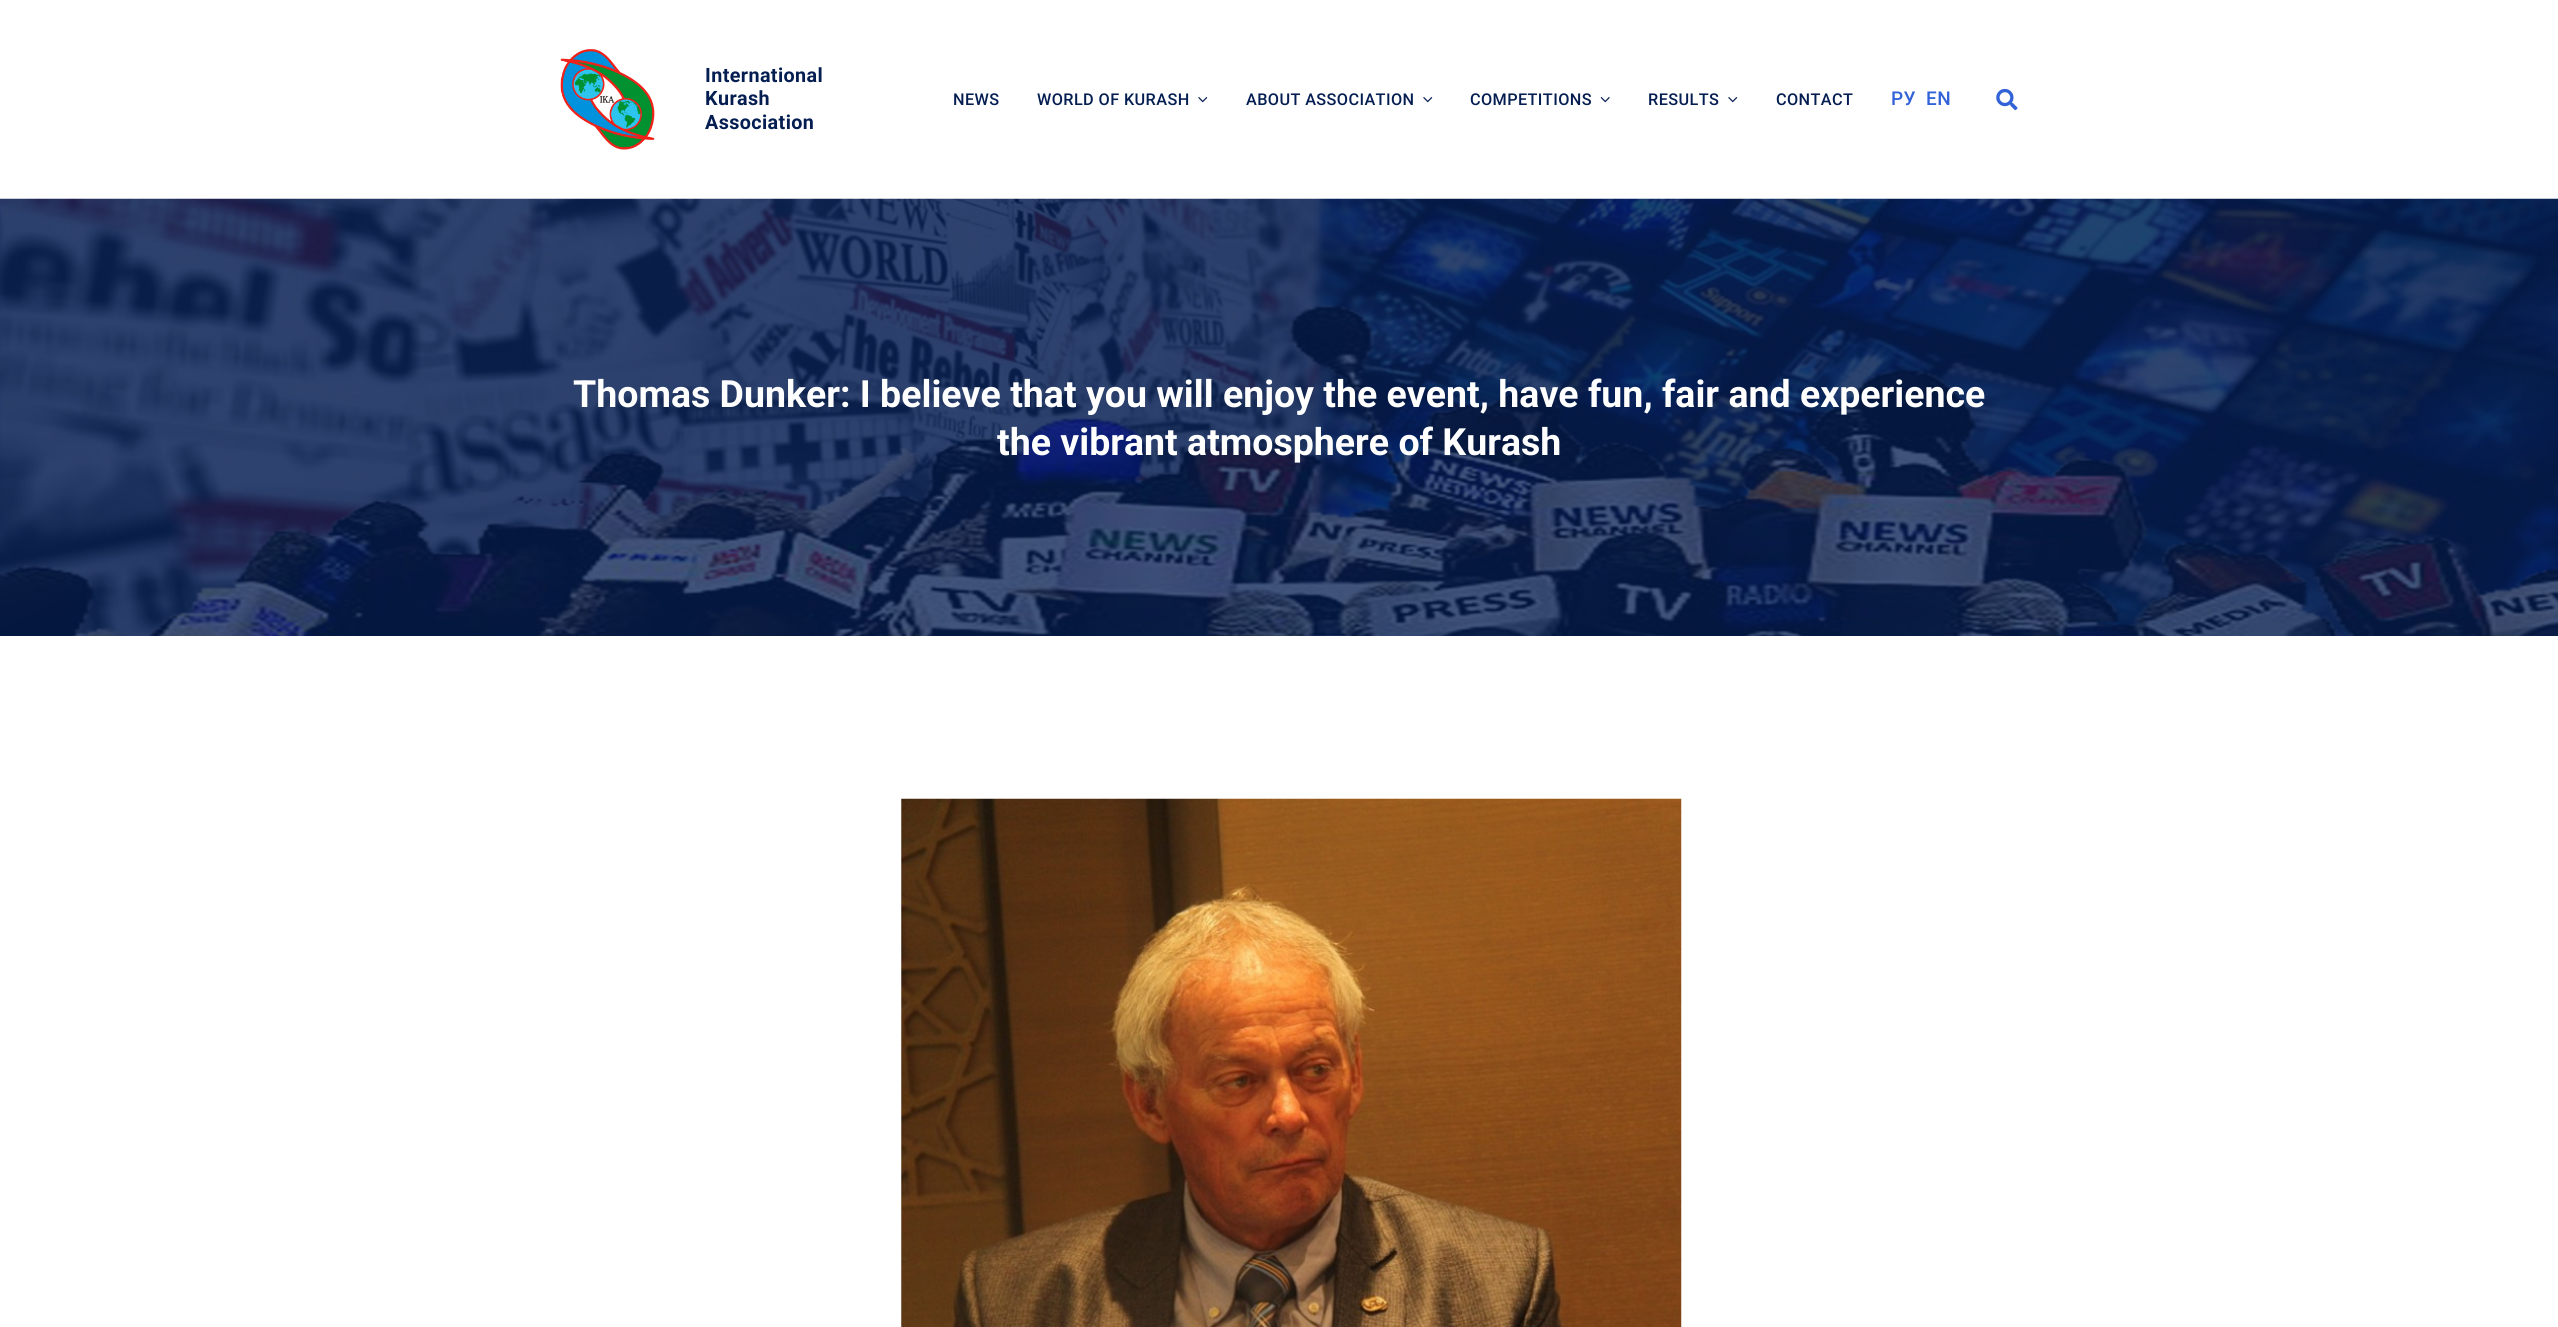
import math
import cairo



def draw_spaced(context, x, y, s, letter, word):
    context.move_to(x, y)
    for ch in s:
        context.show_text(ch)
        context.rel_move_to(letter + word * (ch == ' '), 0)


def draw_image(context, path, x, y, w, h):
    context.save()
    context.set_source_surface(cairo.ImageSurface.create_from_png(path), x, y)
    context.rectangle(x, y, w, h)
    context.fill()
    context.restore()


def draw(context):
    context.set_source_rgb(1, 1, 1)
    context.paint()
    draw_image(context, "images/1.png", 560, 49, 95, 101)
    draw_image(context, "images/2.png", 1198, 97, 10, 6)
    draw_image(context, "images/2.png", 1423, 97, 10, 6)
    draw_image(context, "images/3.png", 1600, 97, 10, 6)
    draw_image(context, "images/2.png", 1728, 97, 10, 6)
    draw_image(context, "images/4.png", 1996, 88, 22, 23)
    draw_image(context, "images/5.png", 0, 198, 2558, 438)
    draw_image(context, "images/6.png", 901, 798, 781, 529)
    context.select_font_face("Roboto", cairo.FontSlant.NORMAL, cairo.FontWeight.BOLD)
    context.set_font_size(19.75)
    context.set_source_rgb(5 / 255, 30 / 255, 82 / 255)
    draw_spaced(context, 705, 82, "International", 0.4, 0)
    draw_spaced(context, 705, 105, "Kurash", 0.4, 0)
    draw_spaced(context, 705, 129, "Association", 0.4, 0)
    context.select_font_face("Roboto Medium")
    context.set_font_size(16.25)
    draw_spaced(context, 953, 105, "NEWS", 0.4, 0)
    draw_spaced(context, 1037, 105, "WORLD OF KURASH", 0.4, 0)
    draw_spaced(context, 1246, 105, "ABOUT ASSOCIATION", 0.4, 0)
    draw_spaced(context, 1470, 105, "COMPETITIONS", 0.4, 0)
    draw_spaced(context, 1648, 105, "RESULTS", 0.4, 0)
    draw_spaced(context, 1776, 105, "CONTACT", 0.4, 0)
    context.set_font_size(19)
    context.set_source_rgb(49 / 255, 98 / 255, 216 / 255)
    draw_spaced(context, 1891, 105, "РУ", 0.4, 0)
    draw_spaced(context, 1926, 105, "EN", 0.4, 0)
    context.select_font_face("Roboto", cairo.FontSlant.NORMAL, cairo.FontWeight.BOLD)
    context.set_font_size(37.5)
    context.set_source_rgb(1, 1, 1)
    context.move_to(573, 407)
    context.show_text("Thomas Dunker: I believe that you will enjoy the event, have fun, fair and experience")
    context.move_to(997, 455)
    context.show_text("the vibrant atmosphere of Kurash")


surface = cairo.ImageSurface(cairo.Format.RGB24, 2558, 1327)
context = cairo.Context(surface)
options = cairo.FontOptions()
options.set_hint_metrics(cairo.HintMetrics.OFF)
options.set_hint_style(cairo.HintStyle.NONE)
context.set_font_options(options)
context.set_miter_limit(4)
draw(context)
surface.write_to_png("out.png")
